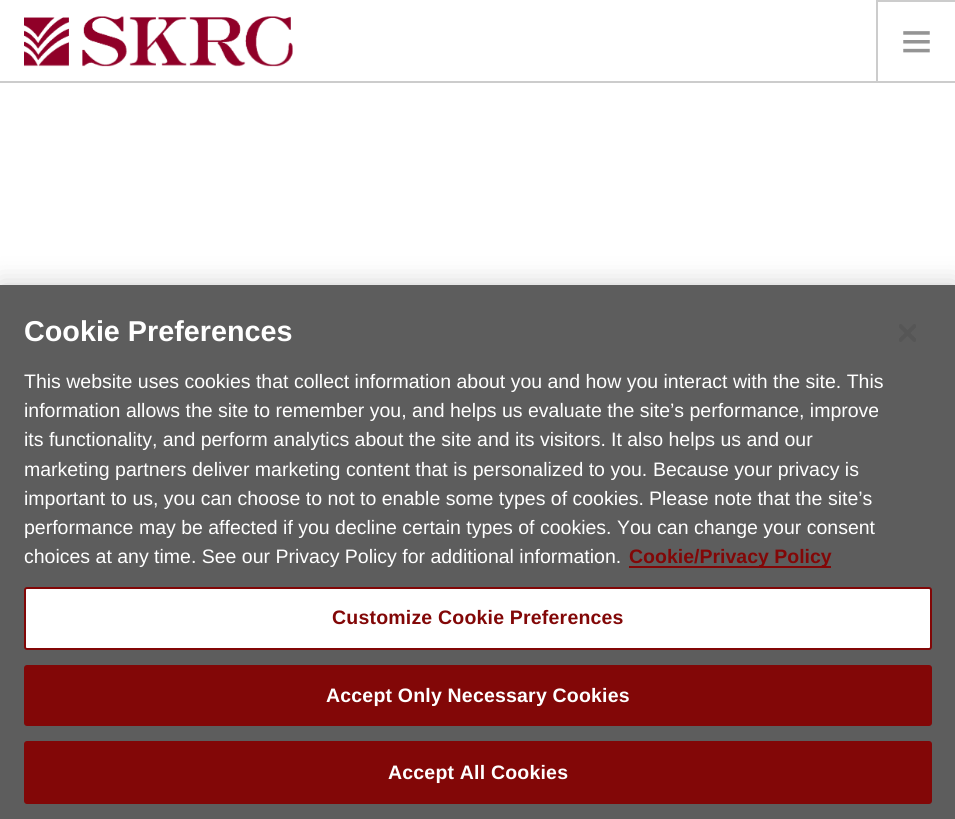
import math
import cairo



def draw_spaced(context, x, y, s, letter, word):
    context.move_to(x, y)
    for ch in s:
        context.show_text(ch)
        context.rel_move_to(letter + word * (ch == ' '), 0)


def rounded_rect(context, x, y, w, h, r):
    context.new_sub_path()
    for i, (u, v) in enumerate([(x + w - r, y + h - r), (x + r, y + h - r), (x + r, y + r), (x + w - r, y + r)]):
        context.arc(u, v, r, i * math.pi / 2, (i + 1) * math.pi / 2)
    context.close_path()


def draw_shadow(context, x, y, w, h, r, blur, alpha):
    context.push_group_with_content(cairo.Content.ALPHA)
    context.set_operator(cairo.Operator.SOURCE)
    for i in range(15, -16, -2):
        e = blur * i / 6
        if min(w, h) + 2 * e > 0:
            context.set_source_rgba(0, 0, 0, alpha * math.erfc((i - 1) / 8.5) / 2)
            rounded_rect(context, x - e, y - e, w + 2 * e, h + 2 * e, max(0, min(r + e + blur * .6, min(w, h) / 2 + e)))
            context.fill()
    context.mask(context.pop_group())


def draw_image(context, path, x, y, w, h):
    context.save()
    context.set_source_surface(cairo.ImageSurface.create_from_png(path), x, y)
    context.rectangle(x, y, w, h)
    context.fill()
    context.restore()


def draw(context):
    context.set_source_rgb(1, 1, 1)
    context.paint()
    context.set_source_rgb(204 / 255, 204 / 255, 204 / 255)
    context.rectangle(0, 81, 955, 2)
    context.fill()
    draw_image(context, "images/1.png", 24, 16, 269, 51)
    context.rectangle(876, 0, 79, 2)
    context.fill()
    context.rectangle(876, 0, 2, 81)
    context.fill()
    draw_image(context, "images/2.png", 903, 31, 27, 22)
    context.set_source_rgb(0, 0, 0)
    draw_shadow(context, 0, 285, 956, 534, 0, 13.5, 0.2)
    context.set_source_rgb(93 / 255, 93 / 255, 93 / 255)
    context.rectangle(0, 285, 955, 534)
    context.fill()
    context.set_source_rgb(130 / 255, 7 / 255, 7 / 255)
    context.rectangle(629, 566, 202, 2)
    context.fill()
    context.set_source_rgb(1, 1, 1)
    rounded_rect(context, 25, 588, 906, 61, 2)
    context.fill_preserve()
    context.set_source_rgb(130 / 255, 7 / 255, 7 / 255)
    context.stroke()
    rounded_rect(context, 25, 666, 906, 59, 2)
    context.fill_preserve()
    context.stroke()
    rounded_rect(context, 25, 742, 906, 61, 2)
    context.fill_preserve()
    context.stroke()
    draw_image(context, "images/3.png", 899, 324, 17, 18)
    context.select_font_face("Liberation Sans", cairo.FontSlant.NORMAL, cairo.FontWeight.BOLD)
    context.set_font_size(28.75)
    context.set_source_rgb(1, 1, 1)
    context.move_to(24, 341)
    context.show_text("Cookie Preferences")
    context.select_font_face("Liberation Sans")
    context.set_font_size(19.5)
    context.move_to(24, 388)
    context.show_text("This website uses cookies that collect information about you and how you interact with the site. This")
    context.move_to(24, 417)
    context.show_text("information allows the site to remember you, and helps us evaluate the site’s performance, improve")
    context.move_to(24, 446)
    context.show_text("its functionality, and perform analytics about the site and its visitors.")
    context.move_to(611, 446)
    context.show_text("It also helps us and our")
    context.move_to(24, 476)
    context.show_text("marketing partners deliver marketing content that is personalized to you.")
    context.move_to(653, 476)
    context.show_text("Because your privacy is")
    context.move_to(24, 505)
    context.show_text("important to us, you can choose to not to enable some types of cookies.")
    context.move_to(649, 505)
    context.show_text("Please note that the site’s")
    context.move_to(24, 534)
    context.show_text("performance may be affected if you decline certain types of cookies.")
    context.move_to(617, 534)
    context.show_text("You can change your consent")
    context.move_to(24, 563)
    context.show_text("choices at any time. See our Privacy Policy for additional information.")
    context.select_font_face("Liberation Sans", cairo.FontSlant.NORMAL, cairo.FontWeight.BOLD)
    context.set_source_rgb(130 / 255, 7 / 255, 7 / 255)
    context.move_to(629, 563)
    context.show_text("Cookie/Privacy Policy")
    draw_spaced(context, 332, 624, "Customize Cookie Preferences", 0.2, 0)
    context.set_source_rgb(1, 1, 1)
    draw_spaced(context, 326, 702, "Accept Only Necessary Cookies", 0.2, 0)
    draw_spaced(context, 388, 779, "Accept All Cookies", 0.2, 0)


surface = cairo.ImageSurface(cairo.Format.RGB24, 955, 819)
context = cairo.Context(surface)
options = cairo.FontOptions()
options.set_hint_metrics(cairo.HintMetrics.OFF)
options.set_hint_style(cairo.HintStyle.NONE)
context.set_font_options(options)
context.set_miter_limit(4)
draw(context)
surface.write_to_png("out.png")
